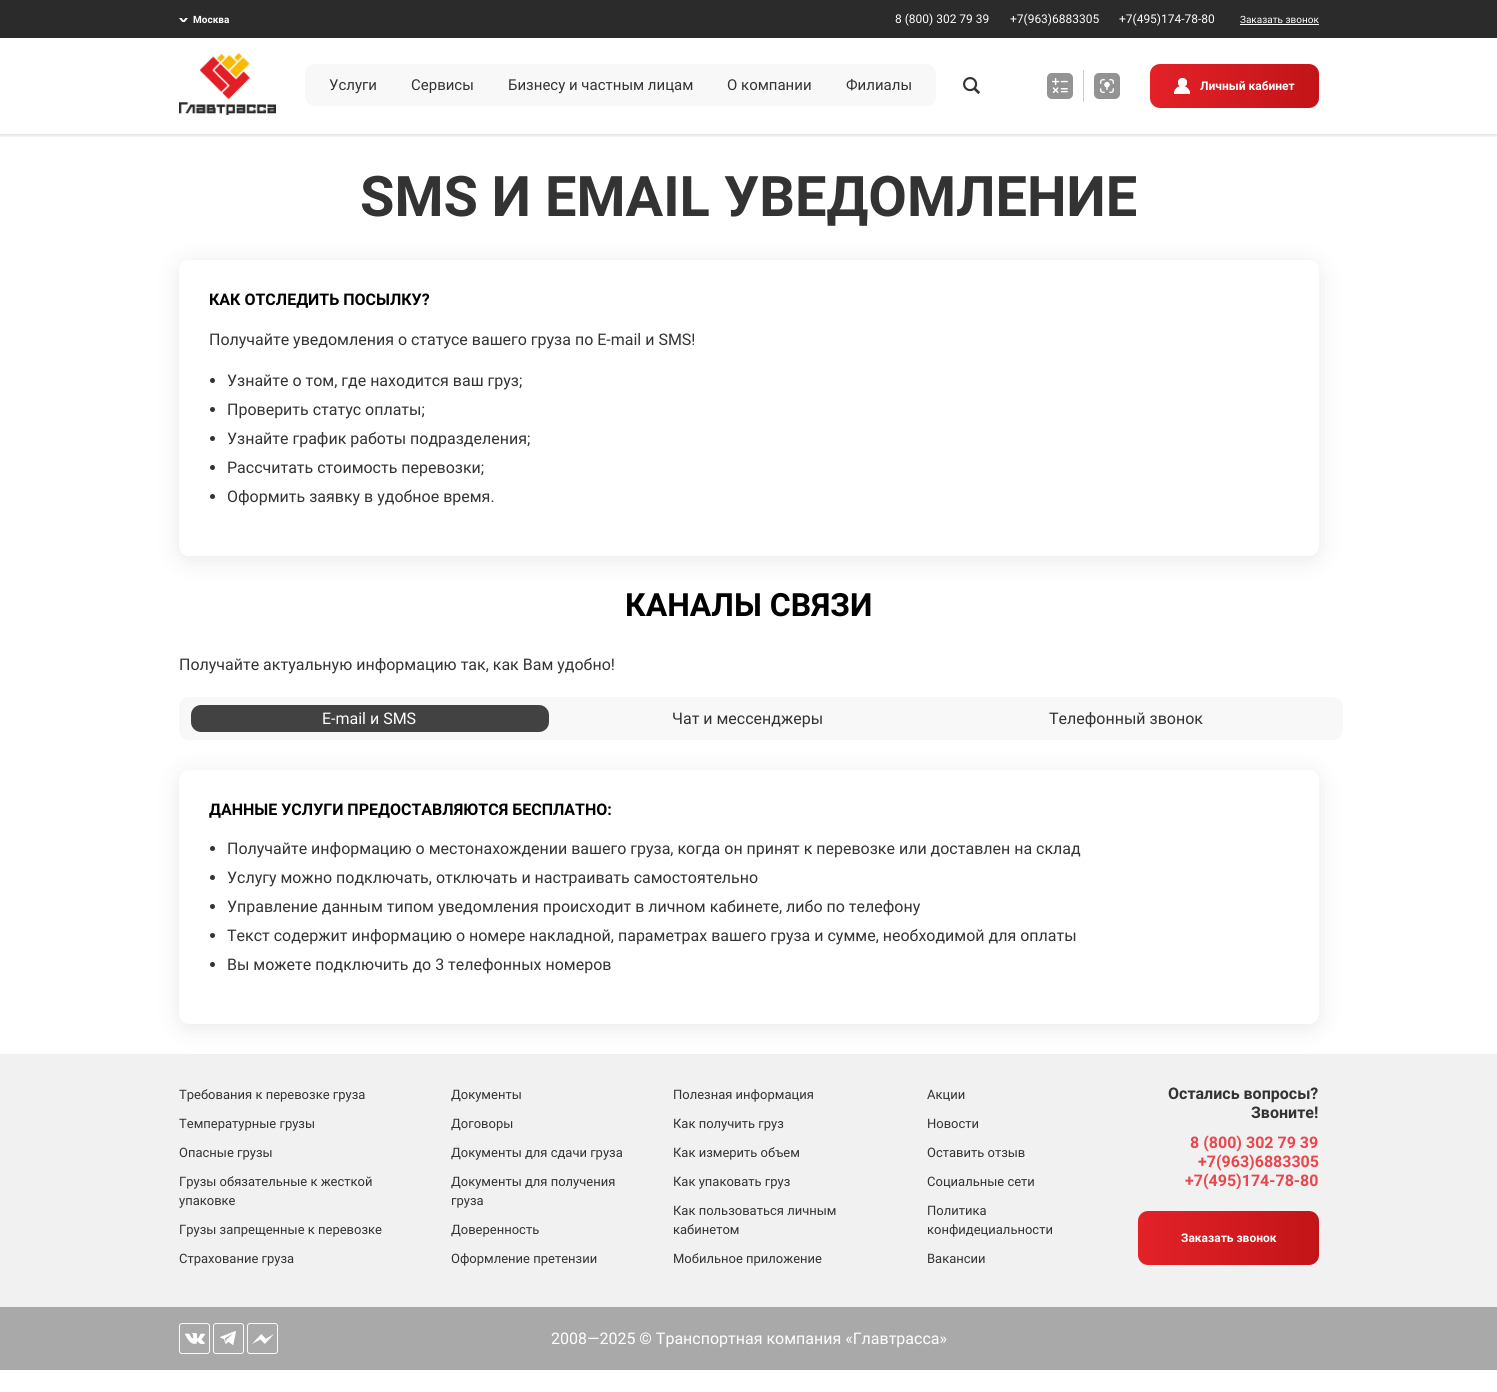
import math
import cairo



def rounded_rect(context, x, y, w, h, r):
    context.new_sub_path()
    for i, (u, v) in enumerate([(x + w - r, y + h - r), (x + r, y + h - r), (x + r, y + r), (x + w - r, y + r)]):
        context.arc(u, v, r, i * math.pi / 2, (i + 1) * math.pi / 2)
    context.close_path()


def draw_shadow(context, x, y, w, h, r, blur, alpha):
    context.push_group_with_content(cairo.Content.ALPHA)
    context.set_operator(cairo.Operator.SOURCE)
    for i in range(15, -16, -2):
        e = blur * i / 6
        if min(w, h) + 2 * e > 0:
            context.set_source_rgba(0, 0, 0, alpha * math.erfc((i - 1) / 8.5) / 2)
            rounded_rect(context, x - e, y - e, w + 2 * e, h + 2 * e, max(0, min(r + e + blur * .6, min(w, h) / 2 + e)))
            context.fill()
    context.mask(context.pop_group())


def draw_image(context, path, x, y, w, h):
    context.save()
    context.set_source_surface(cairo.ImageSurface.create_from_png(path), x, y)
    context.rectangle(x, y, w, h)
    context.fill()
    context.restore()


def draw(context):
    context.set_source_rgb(1, 1, 1)
    context.paint()
    context.set_source_rgb(43 / 255, 43 / 255, 43 / 255)
    context.rectangle(0, 0, 1497, 38)
    context.fill()
    draw_image(context, "images/1.png", 179, 18, 9, 4)
    context.set_source_rgb(1, 1, 1)
    context.rectangle(1240, 24, 79, 1)
    context.fill()
    context.save()
    context.rectangle(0, 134, 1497, 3)
    context.clip()
    context.set_source_rgb(0, 0, 0)
    draw_shadow(context, 0, 40, 1497, 96, 0, 1.5, 0.12)
    context.restore()
    draw_image(context, "images/2.png", 179, 53, 97, 62)
    context.set_source_rgb(248 / 255, 248 / 255, 248 / 255)
    rounded_rect(context, 305, 64, 631, 42, 10)
    context.fill()
    draw_image(context, "images/3.png", 963, 77, 17, 17)
    context.set_source_rgb(147 / 255, 147 / 255, 147 / 255)
    rounded_rect(context, 1047, 73, 26, 26, 5)
    context.fill()
    draw_image(context, "images/4.png", 1052, 78, 16, 15)
    context.set_source_rgb(204 / 255, 204 / 255, 204 / 255)
    context.rectangle(1083, 70, 1, 32)
    context.fill()
    context.set_source_rgb(147 / 255, 147 / 255, 147 / 255)
    rounded_rect(context, 1094, 73, 26, 26, 5)
    context.fill()
    draw_image(context, "images/5.png", 1100, 79, 14, 14)
    gradient = cairo.LinearGradient(1150, 86, 1319, 86)
    gradient.add_color_stop_rgba(0, 227 / 255, 34 / 255, 40 / 255, 1)
    gradient.add_color_stop_rgba(1, 194 / 255, 20 / 255, 24 / 255, 1)
    context.set_source(gradient)
    rounded_rect(context, 1150, 64, 169, 44, 10)
    context.fill()
    draw_image(context, "images/6.png", 1174, 78, 16, 16)
    context.set_source_rgb(0, 0, 0)
    draw_shadow(context, 179, 264, 1140, 296, 10, 12, 0.09)
    context.set_source_rgb(1, 1, 1)
    rounded_rect(context, 179, 260, 1140, 296, 10)
    context.fill()
    context.set_source_rgb(51 / 255, 51 / 255, 51 / 255)
    context.arc(212.5, 380.5, 2.5, 0, 2 * math.pi)
    context.fill()
    context.arc(212.5, 409.5, 2.5, 0, 2 * math.pi)
    context.fill()
    context.arc(212.5, 438.5, 2.5, 0, 2 * math.pi)
    context.fill()
    context.arc(212.5, 467.5, 2.5, 0, 2 * math.pi)
    context.fill()
    context.arc(212.5, 496.5, 2.5, 0, 2 * math.pi)
    context.fill()
    context.set_source_rgb(248 / 255, 248 / 255, 248 / 255)
    rounded_rect(context, 179, 697, 1164, 43, 10)
    context.fill()
    context.set_source_rgb(66 / 255, 66 / 255, 66 / 255)
    rounded_rect(context, 191, 705, 358, 27, 10)
    context.fill()
    context.set_source_rgb(0, 0, 0)
    draw_shadow(context, 179, 774, 1140, 254, 10, 12, 0.09)
    context.set_source_rgb(1, 1, 1)
    rounded_rect(context, 179, 770, 1140, 254, 10)
    context.fill()
    context.set_source_rgb(51 / 255, 51 / 255, 51 / 255)
    context.arc(212.5, 848.5, 2.5, 0, 2 * math.pi)
    context.fill()
    context.arc(212.5, 877.5, 2.5, 0, 2 * math.pi)
    context.fill()
    context.arc(212.5, 906.5, 2.5, 0, 2 * math.pi)
    context.fill()
    context.arc(212.5, 935.5, 2.5, 0, 2 * math.pi)
    context.fill()
    context.arc(212.5, 964.5, 2.5, 0, 2 * math.pi)
    context.fill()
    context.set_source_rgb(241 / 255, 241 / 255, 241 / 255)
    context.rectangle(0, 1054, 1497, 253)
    context.fill()
    gradient = cairo.LinearGradient(1138, 1238, 1319, 1238)
    gradient.add_color_stop_rgba(0, 227 / 255, 34 / 255, 40 / 255, 1)
    gradient.add_color_stop_rgba(1, 194 / 255, 20 / 255, 24 / 255, 1)
    context.set_source(gradient)
    rounded_rect(context, 1138, 1211, 181, 54, 10)
    context.fill()
    context.set_source_rgb(169 / 255, 169 / 255, 169 / 255)
    context.rectangle(0, 1307, 1497, 63)
    context.fill()
    draw_image(context, "images/7.png", 179, 1323, 31, 31)
    draw_image(context, "images/8.png", 213, 1323, 31, 31)
    draw_image(context, "images/9.png", 247, 1323, 31, 31)
    context.select_font_face("Roboto", cairo.FontSlant.NORMAL, cairo.FontWeight.BOLD)
    context.set_font_size(10)
    context.set_source_rgb(1, 1, 1)
    context.move_to(193, 23)
    context.show_text("Москва")
    context.select_font_face("Roboto")
    context.set_font_size(12)
    context.move_to(895, 23)
    context.show_text("8 (800) 302 79 39")
    context.move_to(1010, 23)
    context.show_text("+7(963)6883305")
    context.move_to(1119, 23)
    context.show_text("+7(495)174-78-80")
    context.set_font_size(10)
    context.move_to(1240, 23)
    context.show_text("Заказать звонок")
    context.set_font_size(15)
    context.set_source_rgb(51 / 255, 51 / 255, 51 / 255)
    context.move_to(329, 90)
    context.show_text("Услуги")
    context.move_to(411, 90)
    context.show_text("Сервисы")
    context.move_to(508, 90)
    context.show_text("Бизнесу и частным лицам")
    context.move_to(727, 90)
    context.show_text("О компании")
    context.move_to(846, 90)
    context.show_text("Филиалы")
    context.select_font_face("Roboto", cairo.FontSlant.NORMAL, cairo.FontWeight.BOLD)
    context.set_font_size(12)
    context.set_source_rgb(1, 1, 1)
    context.move_to(1200, 90)
    context.show_text("Личный кабинет")
    context.set_font_size(56)
    context.set_source_rgb(51 / 255, 51 / 255, 51 / 255)
    context.move_to(360, 216)
    context.show_text("SMS И EMAIL УВЕДОМЛЕНИЕ")
    context.set_font_size(16)
    context.set_source_rgb(0, 0, 0)
    context.move_to(209, 305)
    context.show_text("КАК ОТСЛЕДИТЬ ПОСЫЛКУ?")
    context.select_font_face("Roboto")
    context.set_source_rgb(51 / 255, 51 / 255, 51 / 255)
    context.move_to(209, 345)
    context.show_text("Получайте уведомления о статусе вашего груза по E-mail и SMS!")
    context.move_to(227, 386)
    context.show_text("Узнайте о том, где находится ваш груз;")
    context.move_to(227, 415)
    context.show_text("Проверить статус оплаты;")
    context.move_to(227, 444)
    context.show_text("Узнайте график работы подразделения;")
    context.move_to(227, 473)
    context.show_text("Рассчитать стоимость перевозки;")
    context.move_to(227, 502)
    context.show_text("Оформить заявку в удобное время.")
    context.select_font_face("Roboto", cairo.FontSlant.NORMAL, cairo.FontWeight.BOLD)
    context.set_font_size(32)
    context.set_source_rgb(0, 0, 0)
    context.move_to(625, 616)
    context.show_text("КАНАЛЫ СВЯЗИ")
    context.select_font_face("Roboto")
    context.set_font_size(16)
    context.set_source_rgb(51 / 255, 51 / 255, 51 / 255)
    context.move_to(179, 670)
    context.show_text("Получайте актуальную информацию так, как Вам удобно!")
    context.set_source_rgb(1, 1, 1)
    context.move_to(322, 724)
    context.show_text("E-mail и SMS")
    context.set_source_rgb(51 / 255, 51 / 255, 51 / 255)
    context.move_to(672, 724)
    context.show_text("Чат и мессенджеры")
    context.move_to(1049, 724)
    context.show_text("Телефонный звонок")
    context.select_font_face("Roboto", cairo.FontSlant.NORMAL, cairo.FontWeight.BOLD)
    context.set_source_rgb(0, 0, 0)
    context.move_to(209, 815)
    context.show_text("ДАННЫЕ УСЛУГИ ПРЕДОСТАВЛЯЮТСЯ БЕСПЛАТНО:")
    context.select_font_face("Roboto")
    context.set_source_rgb(51 / 255, 51 / 255, 51 / 255)
    context.move_to(227, 854)
    context.show_text("Получайте информацию о местонахождении вашего груза, когда он принят к перевозке или доставлен на склад")
    context.move_to(227, 883)
    context.show_text("Услугу можно подключать, отключать и настраивать самостоятельно")
    context.move_to(227, 912)
    context.show_text("Управление данным типом уведомления происходит в личном кабинете, либо по телефону")
    context.move_to(227, 941)
    context.show_text("Текст содержит информацию о номере накладной, параметрах вашего груза и сумме, необходимой для оплаты")
    context.move_to(227, 970)
    context.show_text("Вы можете подключить до 3 телефонных номеров")
    context.set_font_size(13)
    context.move_to(179, 1099)
    context.show_text("Требования к перевозке груза")
    context.move_to(179, 1128)
    context.show_text("Температурные грузы")
    context.move_to(179, 1157)
    context.show_text("Опасные грузы")
    context.move_to(179, 1186)
    context.show_text("Грузы обязательные к жесткой")
    context.move_to(179, 1205)
    context.show_text("упаковке")
    context.move_to(179, 1234)
    context.show_text("Грузы запрещенные к перевозке")
    context.move_to(179, 1263)
    context.show_text("Страхование груза")
    context.move_to(451, 1099)
    context.show_text("Документы")
    context.move_to(451, 1128)
    context.show_text("Договоры")
    context.move_to(451, 1157)
    context.show_text("Документы для сдачи груза")
    context.move_to(451, 1186)
    context.show_text("Документы для получения")
    context.move_to(451, 1205)
    context.show_text("груза")
    context.move_to(451, 1234)
    context.show_text("Доверенность")
    context.move_to(451, 1263)
    context.show_text("Оформление претензии")
    context.move_to(673, 1099)
    context.show_text("Полезная информация")
    context.move_to(673, 1128)
    context.show_text("Как получить груз")
    context.move_to(673, 1157)
    context.show_text("Как измерить объем")
    context.move_to(673, 1186)
    context.show_text("Как упаковать груз")
    context.move_to(673, 1215)
    context.show_text("Как пользоваться личным")
    context.move_to(673, 1234)
    context.show_text("кабинетом")
    context.move_to(673, 1263)
    context.show_text("Мобильное приложение")
    context.move_to(927, 1099)
    context.show_text("Акции")
    context.move_to(927, 1128)
    context.show_text("Новости")
    context.move_to(927, 1157)
    context.show_text("Оставить отзыв")
    context.move_to(927, 1186)
    context.show_text("Социальные сети")
    context.move_to(927, 1215)
    context.show_text("Политика")
    context.move_to(927, 1234)
    context.show_text("конфидециальности")
    context.move_to(927, 1263)
    context.show_text("Вакансии")
    context.select_font_face("Roboto", cairo.FontSlant.NORMAL, cairo.FontWeight.BOLD)
    context.set_font_size(16)
    context.move_to(1168, 1099)
    context.show_text("Остались вопросы?")
    context.move_to(1251, 1118)
    context.show_text("Звоните!")
    context.set_source_rgb(232 / 255, 71 / 255, 76 / 255)
    context.move_to(1190, 1148)
    context.show_text("8 (800) 302 79 39")
    context.move_to(1198, 1167)
    context.show_text("+7(963)6883305")
    context.move_to(1185, 1186)
    context.show_text("+7(495)174-78-80")
    context.set_font_size(12)
    context.set_source_rgb(1, 1, 1)
    context.move_to(1181, 1242)
    context.show_text("Заказать звонок")
    context.select_font_face("Roboto")
    context.set_font_size(16)
    context.move_to(551, 1344)
    context.show_text("2008—2025 © Транспортная компания «Главтрасса»")


surface = cairo.ImageSurface(cairo.Format.RGB24, 1497, 1392)
context = cairo.Context(surface)
options = cairo.FontOptions()
options.set_hint_metrics(cairo.HintMetrics.OFF)
options.set_hint_style(cairo.HintStyle.NONE)
context.set_font_options(options)
context.set_miter_limit(4)
draw(context)
surface.write_to_png("out.png")
